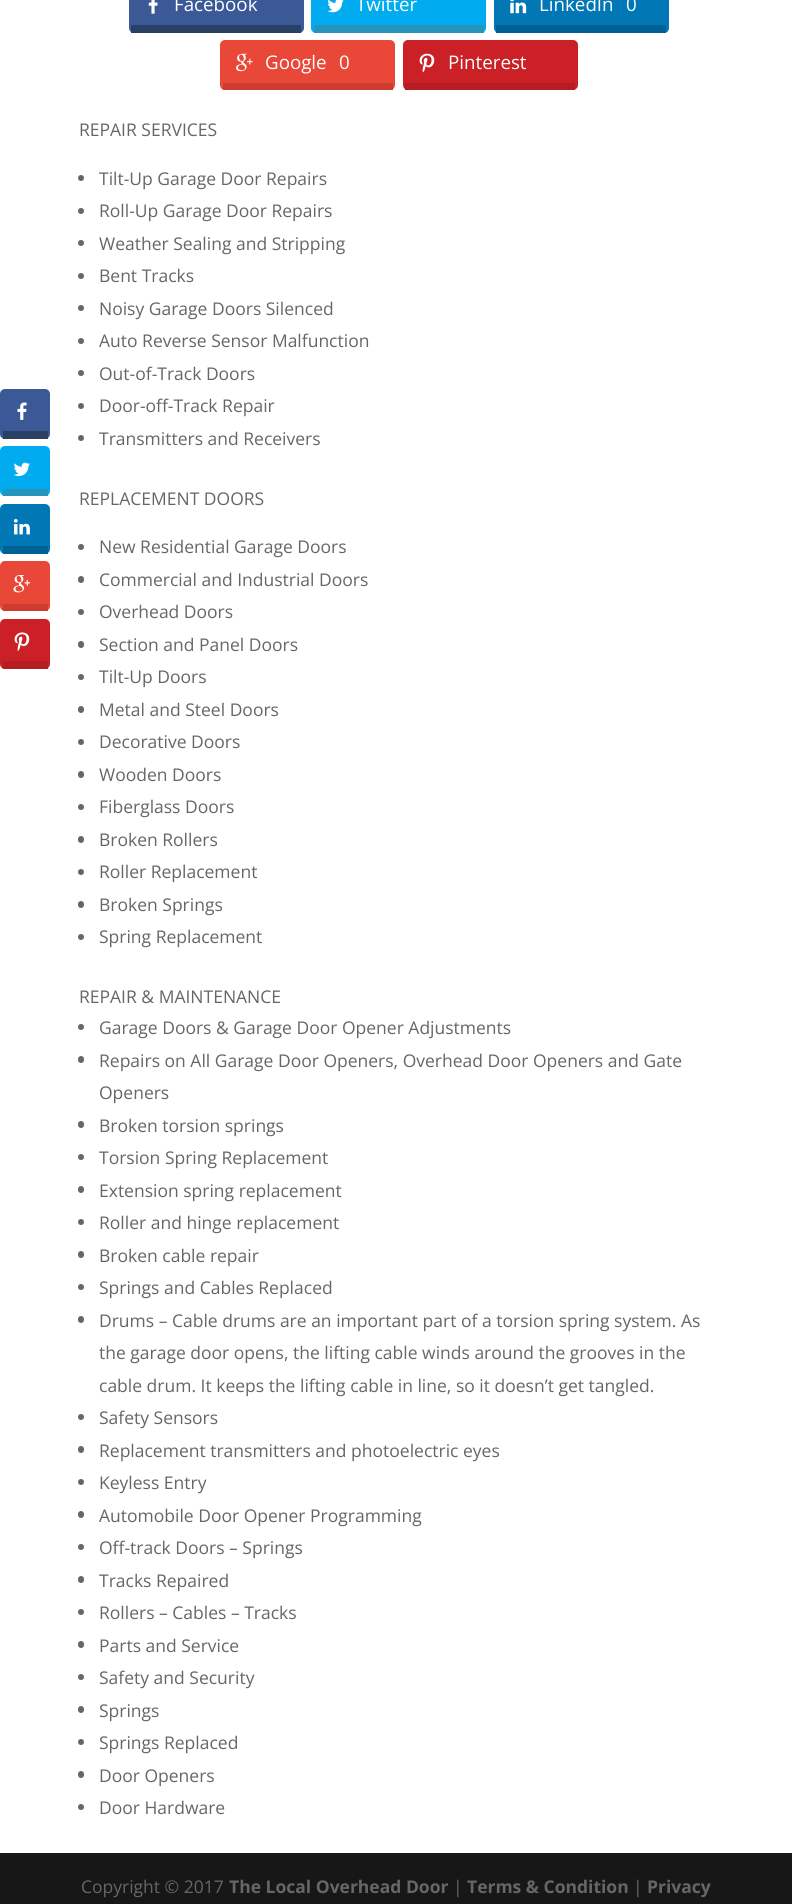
import math
import cairo



def rounded_rect(context, x, y, w, h, r):
    context.new_sub_path()
    for i, (u, v) in enumerate([(x + w - r, y + h - r), (x + r, y + h - r), (x + r, y + r), (x + w - r, y + r)]):
        context.arc(u, v, r, i * math.pi / 2, (i + 1) * math.pi / 2)
    context.close_path()


def draw_image(context, path, x, y, w, h):
    context.save()
    context.set_source_surface(cairo.ImageSurface.create_from_png(path), x, y)
    context.rectangle(x, y, w, h)
    context.fill()
    context.restore()


def draw(context):
    context.set_source_rgb(1, 1, 1)
    context.paint()
    context.set_source_rgb(59 / 255, 89 / 255, 151 / 255)
    rounded_rect(context, 129, -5, 175, 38, 5)
    context.fill()
    context.set_source_rgb(41 / 255, 63 / 255, 100 / 255)
    context.rectangle(131, 25, 170, 8)
    context.fill()
    draw_image(context, "images/1.png", 148, 0, 10, 14)
    context.set_source_rgb(0, 171 / 255, 240 / 255)
    rounded_rect(context, 311, -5, 175, 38, 5)
    context.fill()
    context.set_source_rgb(37 / 255, 149 / 255, 187 / 255)
    context.rectangle(314, 25, 170, 8)
    context.fill()
    draw_image(context, "images/2.png", 327, 0, 17, 13)
    context.set_source_rgb(1 / 255, 119 / 255, 181 / 255)
    rounded_rect(context, 494, -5, 175, 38, 5)
    context.fill()
    context.set_source_rgb(0, 97 / 255, 148 / 255)
    context.rectangle(496, 25, 170, 8)
    context.fill()
    draw_image(context, "images/3.png", 510, 0, 17, 14)
    context.set_source_rgb(233 / 255, 71 / 255, 56 / 255)
    rounded_rect(context, 220, 40, 175, 50, 5)
    context.fill()
    context.set_source_rgb(206 / 255, 60 / 255, 47 / 255)
    context.rectangle(223, 83, 170, 7)
    context.fill()
    draw_image(context, "images/4.png", 236, 53, 17, 19)
    context.set_source_rgb(202 / 255, 32 / 255, 38 / 255)
    rounded_rect(context, 403, 40, 175, 50, 5)
    context.fill()
    context.set_source_rgb(181 / 255, 29 / 255, 34 / 255)
    context.rectangle(405, 83, 170, 7)
    context.fill()
    draw_image(context, "images/5.png", 419, 53, 16, 20)
    context.set_source_rgb(102 / 255, 102 / 255, 102 / 255)
    context.arc(81, 178, 3, 0, 2 * math.pi)
    context.fill()
    context.arc(81, 211, 3, 0, 2 * math.pi)
    context.fill()
    context.arc(81, 243, 3, 0, 2 * math.pi)
    context.fill()
    context.arc(81, 276, 3, 0, 2 * math.pi)
    context.fill()
    context.arc(81, 308, 3, 0, 2 * math.pi)
    context.fill()
    context.arc(81, 341, 3, 0, 2 * math.pi)
    context.fill()
    context.arc(81, 373, 3, 0, 2 * math.pi)
    context.fill()
    context.arc(81, 406, 3, 0, 2 * math.pi)
    context.fill()
    context.arc(81, 438, 3, 0, 2 * math.pi)
    context.fill()
    context.set_source_rgb(59 / 255, 89 / 255, 151 / 255)
    rounded_rect(context, 0, 389, 50, 50, 5)
    context.fill()
    context.set_source_rgb(41 / 255, 63 / 255, 100 / 255)
    context.rectangle(3, 431, 45, 8)
    context.fill()
    draw_image(context, "images/6.png", 17, 402, 10, 18)
    context.set_source_rgb(0, 171 / 255, 240 / 255)
    rounded_rect(context, 0, 446, 50, 50, 5)
    context.fill()
    context.set_source_rgb(37 / 255, 149 / 255, 187 / 255)
    context.rectangle(3, 489, 45, 7)
    context.fill()
    draw_image(context, "images/7.png", 13, 462, 17, 15)
    context.set_source_rgb(1 / 255, 119 / 255, 181 / 255)
    rounded_rect(context, 0, 504, 50, 50, 5)
    context.fill()
    context.set_source_rgb(0, 97 / 255, 148 / 255)
    context.rectangle(3, 546, 45, 8)
    context.fill()
    draw_image(context, "images/8.png", 13, 519, 17, 16)
    context.set_source_rgb(233 / 255, 71 / 255, 56 / 255)
    rounded_rect(context, 0, 561, 50, 50, 5)
    context.fill()
    context.set_source_rgb(206 / 255, 60 / 255, 47 / 255)
    context.rectangle(3, 604, 45, 7)
    context.fill()
    draw_image(context, "images/9.png", 13, 575, 18, 18)
    context.set_source_rgb(202 / 255, 32 / 255, 38 / 255)
    rounded_rect(context, 0, 619, 50, 50, 5)
    context.fill()
    context.set_source_rgb(181 / 255, 29 / 255, 34 / 255)
    context.rectangle(3, 661, 45, 8)
    context.fill()
    draw_image(context, "images/10.png", 14, 632, 16, 20)
    context.set_source_rgb(102 / 255, 102 / 255, 102 / 255)
    context.arc(81, 547, 3, 0, 2 * math.pi)
    context.fill()
    rounded_rect(context, 78, 576, 6, 7, 3)
    context.fill()
    context.arc(81, 612, 3, 0, 2 * math.pi)
    context.fill()
    rounded_rect(context, 78, 641, 6, 7, 3)
    context.fill()
    context.arc(81, 677, 3, 0, 2 * math.pi)
    context.fill()
    rounded_rect(context, 78, 706, 6, 7, 3)
    context.fill()
    context.arc(81, 742, 3, 0, 2 * math.pi)
    context.fill()
    rounded_rect(context, 78, 771, 6, 7, 3)
    context.fill()
    context.arc(81, 807, 3, 0, 2 * math.pi)
    context.fill()
    rounded_rect(context, 78, 836, 6, 7, 3)
    context.fill()
    context.arc(81, 872, 3, 0, 2 * math.pi)
    context.fill()
    rounded_rect(context, 78, 901, 6, 7, 3)
    context.fill()
    context.arc(81, 937, 3, 0, 2 * math.pi)
    context.fill()
    context.arc(81, 1027, 3, 0, 2 * math.pi)
    context.fill()
    rounded_rect(context, 78, 1056, 6, 7, 3)
    context.fill()
    rounded_rect(context, 78, 1121, 6, 7, 3)
    context.fill()
    context.arc(81, 1157, 3, 0, 2 * math.pi)
    context.fill()
    rounded_rect(context, 78, 1186, 6, 7, 3)
    context.fill()
    context.arc(81, 1222, 3, 0, 2 * math.pi)
    context.fill()
    rounded_rect(context, 78, 1251, 6, 7, 3)
    context.fill()
    context.arc(81, 1287, 3, 0, 2 * math.pi)
    context.fill()
    rounded_rect(context, 78, 1316, 6, 7, 3)
    context.fill()
    context.arc(81, 1417, 3, 0, 2 * math.pi)
    context.fill()
    rounded_rect(context, 78, 1446, 6, 7, 3)
    context.fill()
    context.arc(81, 1482, 3, 0, 2 * math.pi)
    context.fill()
    rounded_rect(context, 78, 1511, 6, 7, 3)
    context.fill()
    context.arc(81, 1547, 3, 0, 2 * math.pi)
    context.fill()
    rounded_rect(context, 78, 1576, 6, 7, 3)
    context.fill()
    context.arc(81, 1612, 3, 0, 2 * math.pi)
    context.fill()
    rounded_rect(context, 78, 1641, 6, 7, 3)
    context.fill()
    context.arc(81, 1677, 3, 0, 2 * math.pi)
    context.fill()
    rounded_rect(context, 78, 1706, 6, 7, 3)
    context.fill()
    context.arc(81, 1742, 3, 0, 2 * math.pi)
    context.fill()
    rounded_rect(context, 78, 1771, 6, 7, 3)
    context.fill()
    context.arc(81, 1807, 3, 0, 2 * math.pi)
    context.fill()
    context.set_source_rgb(23 / 255, 23 / 255, 23 / 255)
    context.rectangle(0, 1853, 792, 51)
    context.fill()
    context.select_font_face("Open Sans")
    context.set_font_size(18.75)
    context.set_source_rgb(1, 1, 1)
    context.move_to(174, 11)
    context.show_text("Facebook")
    context.move_to(356, 11)
    context.show_text("Twitter")
    context.move_to(539, 11)
    context.show_text("LinkedIn")
    context.move_to(626, 11)
    context.show_text("0")
    context.move_to(265, 69)
    context.show_text("Google")
    context.move_to(339, 69)
    context.show_text("0")
    context.move_to(448, 69)
    context.show_text("Pinterest")
    context.set_font_size(17.5)
    context.set_source_rgb(102 / 255, 102 / 255, 102 / 255)
    context.move_to(79, 136)
    context.show_text("REPAIR SERVICES")
    context.move_to(99, 185)
    context.show_text("Tilt-Up Garage Door Repairs")
    context.move_to(99, 217)
    context.show_text("Roll-Up Garage Door Repairs")
    context.move_to(99, 250)
    context.show_text("Weather Sealing and Stripping")
    context.move_to(99, 282)
    context.show_text("Bent Tracks")
    context.move_to(99, 315)
    context.show_text("Noisy Garage Doors Silenced")
    context.move_to(99, 347)
    context.show_text("Auto Reverse Sensor Malfunction")
    context.move_to(99, 380)
    context.show_text("Out-of-Track Doors")
    context.move_to(99, 412)
    context.show_text("Door-off-Track Repair")
    context.move_to(99, 445)
    context.show_text("Transmitters and Receivers")
    context.move_to(79, 505)
    context.show_text("REPLACEMENT DOORS")
    context.move_to(99, 553)
    context.show_text("New Residential Garage Doors")
    context.move_to(99, 586)
    context.show_text("Commercial and Industrial Doors")
    context.move_to(99, 618)
    context.show_text("Overhead Doors")
    context.move_to(99, 651)
    context.show_text("Section and Panel Doors")
    context.move_to(99, 683)
    context.show_text("Tilt-Up Doors")
    context.move_to(99, 716)
    context.show_text("Metal and Steel Doors")
    context.move_to(99, 748)
    context.show_text("Decorative Doors")
    context.move_to(99, 781)
    context.show_text("Wooden Doors")
    context.move_to(99, 813)
    context.show_text("Fiberglass Doors")
    context.move_to(99, 846)
    context.show_text("Broken Rollers")
    context.move_to(99, 878)
    context.show_text("Roller Replacement")
    context.move_to(99, 911)
    context.show_text("Broken Springs")
    context.move_to(99, 943)
    context.show_text("Spring Replacement")
    context.move_to(79, 1003)
    context.show_text("REPAIR & MAINTENANCE")
    context.move_to(99, 1034)
    context.show_text("Garage Doors & Garage Door Opener Adjustments")
    context.move_to(99, 1067)
    context.show_text("Repairs on All Garage Door Openers, Overhead Door Openers and Gate")
    context.move_to(99, 1099)
    context.show_text("Openers")
    context.move_to(99, 1132)
    context.show_text("Broken torsion springs")
    context.move_to(99, 1164)
    context.show_text("Torsion Spring Replacement")
    context.move_to(99, 1197)
    context.show_text("Extension spring replacement")
    context.move_to(99, 1229)
    context.show_text("Roller and hinge replacement")
    context.move_to(99, 1262)
    context.show_text("Broken cable repair")
    context.move_to(99, 1294)
    context.show_text("Springs and Cables Replaced")
    context.move_to(99, 1327)
    context.show_text("Drums – Cable drums are an important part of a torsion spring system. As")
    context.move_to(99, 1359)
    context.show_text("the garage door opens, the lifting cable winds around the grooves in the")
    context.move_to(99, 1392)
    context.show_text("cable drum. It keeps the lifting cable in line, so it doesn’t get tangled.")
    context.move_to(99, 1424)
    context.show_text("Safety Sensors")
    context.move_to(99, 1457)
    context.show_text("Replacement transmitters and photoelectric eyes")
    context.move_to(99, 1489)
    context.show_text("Keyless Entry")
    context.move_to(99, 1522)
    context.show_text("Automobile Door Opener Programming")
    context.move_to(99, 1554)
    context.show_text("Off-track Doors – Springs")
    context.move_to(99, 1587)
    context.show_text("Tracks Repaired")
    context.move_to(99, 1619)
    context.show_text("Rollers – Cables – Tracks")
    context.move_to(99, 1652)
    context.show_text("Parts and Service")
    context.move_to(99, 1684)
    context.show_text("Safety and Security")
    context.move_to(99, 1717)
    context.show_text("Springs")
    context.move_to(99, 1749)
    context.show_text("Springs Replaced")
    context.move_to(99, 1782)
    context.show_text("Door Openers")
    context.move_to(99, 1814)
    context.show_text("Door Hardware")
    context.move_to(81, 1893)
    context.show_text("Copyright © 2017")
    context.select_font_face("Open Sans", cairo.FontSlant.NORMAL, cairo.FontWeight.BOLD)
    context.move_to(229, 1893)
    context.show_text("The Local Overhead Door")
    context.select_font_face("Open Sans")
    context.move_to(453, 1893)
    context.show_text("|")
    context.select_font_face("Open Sans", cairo.FontSlant.NORMAL, cairo.FontWeight.BOLD)
    context.move_to(467, 1893)
    context.show_text("Terms & Condition")
    context.select_font_face("Open Sans")
    context.move_to(633, 1893)
    context.show_text("|")
    context.select_font_face("Open Sans", cairo.FontSlant.NORMAL, cairo.FontWeight.BOLD)
    context.move_to(647, 1893)
    context.show_text("Privacy")


surface = cairo.ImageSurface(cairo.Format.RGB24, 792, 1904)
context = cairo.Context(surface)
options = cairo.FontOptions()
options.set_hint_metrics(cairo.HintMetrics.OFF)
options.set_hint_style(cairo.HintStyle.NONE)
context.set_font_options(options)
context.set_miter_limit(4)
draw(context)
surface.write_to_png("out.png")
